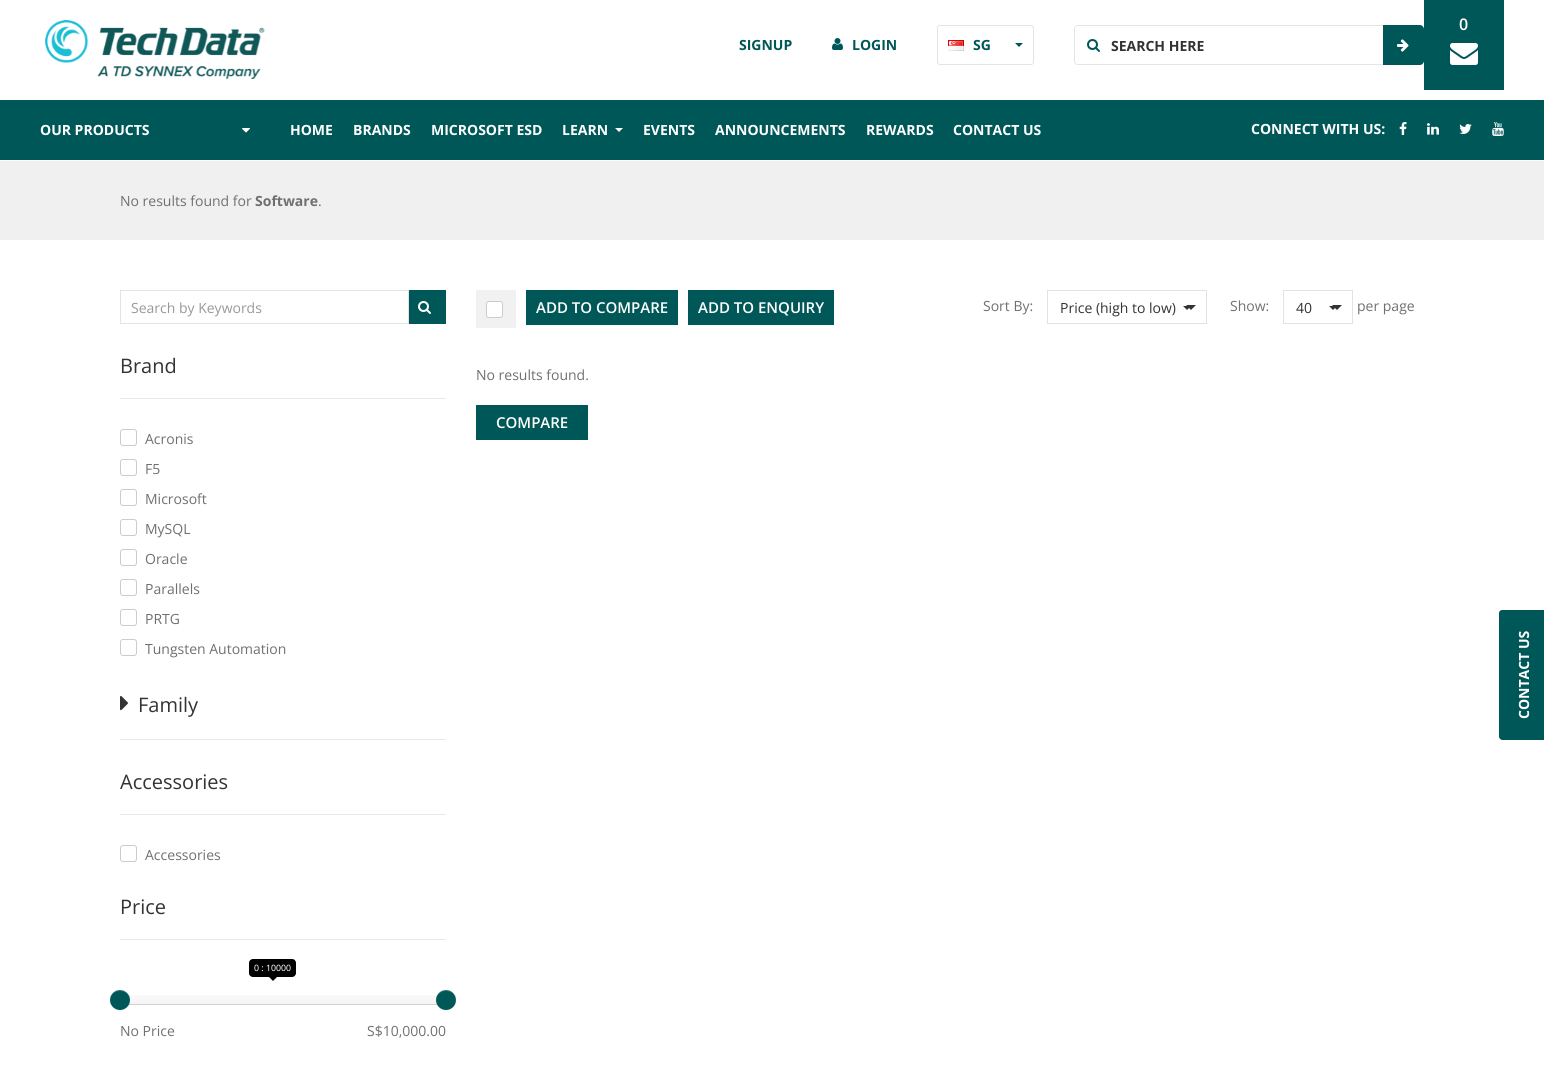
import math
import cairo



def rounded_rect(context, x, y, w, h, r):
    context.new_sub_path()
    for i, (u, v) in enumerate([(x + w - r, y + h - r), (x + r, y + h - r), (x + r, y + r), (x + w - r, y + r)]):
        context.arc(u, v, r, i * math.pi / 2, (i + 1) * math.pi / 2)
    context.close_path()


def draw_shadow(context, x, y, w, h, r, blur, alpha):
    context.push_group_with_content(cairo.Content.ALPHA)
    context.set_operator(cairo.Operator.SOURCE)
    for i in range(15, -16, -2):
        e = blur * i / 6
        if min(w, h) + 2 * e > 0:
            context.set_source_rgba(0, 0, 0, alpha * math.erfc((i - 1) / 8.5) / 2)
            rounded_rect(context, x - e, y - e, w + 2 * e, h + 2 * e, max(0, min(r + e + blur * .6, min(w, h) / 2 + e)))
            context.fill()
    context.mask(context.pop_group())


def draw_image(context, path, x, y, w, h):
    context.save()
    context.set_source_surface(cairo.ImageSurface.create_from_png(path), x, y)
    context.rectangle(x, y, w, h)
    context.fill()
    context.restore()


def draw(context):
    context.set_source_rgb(1, 1, 1)
    context.paint()
    draw_image(context, "images/1.png", 45, 20, 220, 60)
    draw_image(context, "images/2.png", 832, 38, 11, 12)
    rounded_rect(context, 937.5, 25.5, 96, 39, 2.5)
    context.set_source_rgb(228 / 255, 228 / 255, 228 / 255)
    context.set_line_width(1)
    context.stroke()
    draw_image(context, "images/3.png", 948, 40, 16, 11)
    context.set_source_rgb(0, 87 / 255, 88 / 255)
    context.new_path()
    context.move_to(1015, 43)
    context.line_to(1023, 43)
    context.line_to(1019, 47)
    context.close_path()
    context.fill()
    context.set_source_rgb(228 / 255, 228 / 255, 228 / 255)
    context.set_fill_rule(cairo.FillRule.EVEN_ODD)
    context.new_path()
    context.move_to(1078, 25)
    context.line_to(1112, 25)
    context.line_to(1112, 65)
    context.line_to(1078, 65)
    context.curve_to(1076, 65, 1074, 63, 1074, 61)
    context.line_to(1074, 29)
    context.curve_to(1074, 27, 1076, 25, 1078, 25)
    context.close_path()
    context.move_to(1078, 26)
    context.line_to(1112, 26)
    context.line_to(1112, 64)
    context.line_to(1078, 64)
    context.curve_to(1076, 64, 1075, 63, 1075, 61)
    context.line_to(1075, 29)
    context.curve_to(1075, 27, 1076, 26, 1078, 26)
    context.close_path()
    context.fill()
    draw_image(context, "images/4.png", 1087, 39, 13, 13)
    context.set_source_rgb(0, 87 / 255, 88 / 255)
    context.new_path()
    context.move_to(1382, 25)
    context.line_to(1420, 25)
    context.curve_to(1422, 25, 1424, 27, 1424, 29)
    context.line_to(1424, 61)
    context.curve_to(1424, 63, 1422, 65, 1420, 65)
    context.line_to(1382, 65)
    context.close_path()
    context.fill()
    context.set_source_rgb(1, 1, 1)
    context.rectangle(1382, 26, 1, 38)
    context.fill()
    context.set_source_rgb(228 / 255, 228 / 255, 228 / 255)
    context.rectangle(1111, 25, 272, 1)
    context.fill()
    context.rectangle(1111, 64, 272, 1)
    context.fill()
    draw_image(context, "images/5.png", 1397, 39, 12, 13)
    context.set_source_rgb(0, 87 / 255, 88 / 255)
    context.rectangle(1424, 0, 80, 90)
    context.fill()
    draw_image(context, "images/6.png", 1450, 43, 28, 22)
    context.rectangle(0, 100, 1544, 60)
    context.fill()
    draw_image(context, "images/7.png", 242, 128, 8, 5)
    context.set_source_rgb(1, 1, 1)
    context.set_fill_rule(cairo.FillRule.WINDING)
    context.new_path()
    context.move_to(615, 128)
    context.line_to(623, 128)
    context.line_to(619, 132)
    context.close_path()
    context.fill()
    draw_image(context, "images/8.png", 1399, 122, 8, 13)
    draw_image(context, "images/9.png", 1427, 123, 12, 12)
    draw_image(context, "images/10.png", 1459, 124, 13, 10)
    draw_image(context, "images/11.png", 1492, 122, 12, 14)
    context.set_source_rgb(240 / 255, 240 / 255, 240 / 255)
    context.rectangle(0, 161, 1544, 79)
    context.fill()
    context.rectangle(120.5, 290.5, 288, 33)
    context.set_source_rgb(228 / 255, 228 / 255, 228 / 255)
    context.stroke()
    context.set_source_rgb(0, 87 / 255, 88 / 255)
    context.rectangle(409, 290, 37, 34)
    context.fill()
    draw_image(context, "images/12.png", 418, 301, 13, 13)
    context.set_source_rgb(232 / 255, 232 / 255, 232 / 255)
    context.rectangle(120, 398, 326, 1)
    context.fill()
    rounded_rect(context, 120.5, 429.5, 16, 16, 2.5)
    context.set_source_rgb(204 / 255, 204 / 255, 204 / 255)
    context.stroke()
    rounded_rect(context, 120.5, 459.5, 16, 16, 2.5)
    context.stroke()
    rounded_rect(context, 120.5, 489.5, 16, 16, 2.5)
    context.stroke()
    rounded_rect(context, 120.5, 519.5, 16, 16, 2.5)
    context.stroke()
    rounded_rect(context, 120.5, 549.5, 16, 16, 2.5)
    context.stroke()
    rounded_rect(context, 120.5, 579.5, 16, 16, 2.5)
    context.stroke()
    rounded_rect(context, 120.5, 609.5, 16, 16, 2.5)
    context.stroke()
    rounded_rect(context, 120.5, 639.5, 16, 16, 2.5)
    context.stroke()
    context.set_source_rgb(232 / 255, 232 / 255, 232 / 255)
    context.rectangle(120, 739, 326, 1)
    context.fill()
    draw_image(context, "images/13.png", 120, 696, 8, 15)
    context.rectangle(120, 814, 326, 1)
    context.fill()
    rounded_rect(context, 120.5, 845.5, 16, 16, 2.5)
    context.set_source_rgb(204 / 255, 204 / 255, 204 / 255)
    context.stroke()
    context.set_source_rgb(232 / 255, 232 / 255, 232 / 255)
    context.rectangle(120, 939, 326, 1)
    context.fill()
    context.set_source_rgb(0, 0, 0)
    rounded_rect(context, 249, 959, 47, 18, 4)
    context.fill()
    context.new_path()
    context.move_to(268, 976)
    context.line_to(278, 976)
    context.line_to(273, 981)
    context.close_path()
    context.fill()
    gradient = cairo.LinearGradient(283, 995, 283, 1005)
    gradient.add_color_stop_rgba(0, 249 / 255, 249 / 255, 249 / 255, 1)
    gradient.add_color_stop_rgba(1, 245 / 255, 245 / 255, 245 / 255, 1)
    context.set_source(gradient)
    context.rectangle(128, 995, 310, 9)
    context.fill()
    context.set_source_rgb(208 / 255, 208 / 255, 208 / 255)
    context.new_path()
    context.move_to(120, 1000)
    context.line_to(120, 1001)
    context.curve_to(120, 1003, 122, 1005, 124, 1005)
    context.line_to(442, 1005)
    context.curve_to(444, 1005, 446, 1003, 446, 1001)
    context.line_to(446, 1000)
    context.curve_to(446, 1002, 444, 1004, 442, 1004)
    context.line_to(124, 1004)
    context.curve_to(122, 1004, 120, 1002, 120, 1000)
    context.close_path()
    context.fill()
    context.set_source_rgb(0, 0, 0)
    draw_shadow(context, 110, 991, 20, 20, 10, 1, 0.05)
    context.set_source_rgb(0, 87 / 255, 88 / 255)
    context.arc(120, 1000, 10, 0, 2 * math.pi)
    context.fill()
    context.set_source_rgba(1, 1, 1, 0.2)
    context.new_path()
    context.move_to(120, 991)
    context.curve_to(127.5, 991, 130.5, 997, 129.5, 1003)
    context.curve_to(130, 1000.5, 130, 998, 129, 996)
    context.curve_to(124.5, 984.5, 107, 991, 110.5, 1003)
    context.curve_to(109.5, 997, 112.5, 991, 120, 991)
    context.close_path()
    context.fill()
    context.set_source_rgb(0, 0, 0)
    draw_shadow(context, 436, 991, 20, 20, 10, 1, 0.05)
    context.set_source_rgb(0, 87 / 255, 88 / 255)
    context.arc(446, 1000, 10, 0, 2 * math.pi)
    context.fill()
    context.set_source_rgba(1, 1, 1, 0.2)
    context.new_path()
    context.move_to(446, 991)
    context.curve_to(453.5, 991, 456.5, 997, 455.5, 1003)
    context.curve_to(459, 991, 441.5, 984.5, 437, 996)
    context.curve_to(436, 998, 436, 1000.5, 436.5, 1003)
    context.curve_to(435.5, 997, 438.5, 991, 446, 991)
    context.close_path()
    context.fill()
    context.set_source_rgb(241 / 255, 241 / 255, 241 / 255)
    context.rectangle(476, 290, 40, 38)
    context.fill()
    context.set_source_rgb(1, 1, 1)
    rounded_rect(context, 486.5, 301.5, 16, 16, 2.5)
    context.fill_preserve()
    context.set_source_rgb(204 / 255, 204 / 255, 204 / 255)
    context.stroke()
    context.set_source_rgb(0, 87 / 255, 88 / 255)
    context.rectangle(526, 290, 152, 35)
    context.fill()
    context.rectangle(688, 290, 146, 35)
    context.fill()
    context.rectangle(1047.5, 290.5, 159, 33)
    context.set_source_rgb(227 / 255, 227 / 255, 227 / 255)
    context.stroke()
    context.set_source_rgb(51 / 255, 51 / 255, 51 / 255)
    context.new_path()
    context.move_to(1183, 306)
    context.line_to(1191, 306)
    context.line_to(1187, 310)
    context.close_path()
    context.fill()
    context.new_path()
    context.move_to(1186, 305)
    context.line_to(1196, 305)
    context.line_to(1191, 310)
    context.close_path()
    context.fill()
    context.rectangle(1283.5, 290.5, 69, 33)
    context.set_source_rgb(227 / 255, 227 / 255, 227 / 255)
    context.stroke()
    context.set_source_rgb(51 / 255, 51 / 255, 51 / 255)
    context.new_path()
    context.move_to(1329, 306)
    context.line_to(1337, 306)
    context.line_to(1333, 310)
    context.close_path()
    context.fill()
    context.new_path()
    context.move_to(1332, 305)
    context.line_to(1342, 305)
    context.line_to(1337, 310)
    context.close_path()
    context.fill()
    context.set_source_rgb(0, 87 / 255, 88 / 255)
    context.rectangle(476, 405, 112, 35)
    context.fill()
    context.new_path()
    context.move_to(1499, 737)
    context.line_to(1499, 613)
    context.curve_to(1499, 611, 1501, 610, 1502, 610)
    context.line_to(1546, 610)
    context.curve_to(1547, 610, 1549, 611, 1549, 613)
    context.line_to(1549, 737)
    context.curve_to(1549, 738, 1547, 740, 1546, 740)
    context.line_to(1502, 740)
    context.curve_to(1501, 740, 1499, 738, 1499, 737)
    context.close_path()
    context.fill()
    context.select_font_face("Open Sans", cairo.FontSlant.NORMAL, cairo.FontWeight.BOLD)
    context.set_font_size(14)
    context.move_to(739, 50)
    context.show_text("SIGNUP")
    context.move_to(852, 50)
    context.show_text("LOGIN")
    context.move_to(973, 50)
    context.show_text("SG")
    context.set_source_rgb(51 / 255, 51 / 255, 51 / 255)
    context.move_to(1111, 51)
    context.show_text("SEARCH HERE")
    context.select_font_face("Open Sans SemiBold")
    context.set_font_size(16)
    context.set_source_rgb(1, 1, 1)
    context.move_to(1459, 30)
    context.show_text("0")
    context.select_font_face("Open Sans", cairo.FontSlant.NORMAL, cairo.FontWeight.BOLD)
    context.set_font_size(14)
    context.move_to(40, 135)
    context.show_text("OUR PRODUCTS")
    context.move_to(290, 135)
    context.show_text("HOME")
    context.move_to(353, 135)
    context.show_text("BRANDS")
    context.move_to(431, 135)
    context.show_text("MICROSOFT ESD")
    context.move_to(562, 135)
    context.show_text("LEARN")
    context.move_to(643, 135)
    context.show_text("EVENTS")
    context.move_to(715, 135)
    context.show_text("ANNOUNCEMENTS")
    context.move_to(866, 135)
    context.show_text("REWARDS")
    context.move_to(953, 135)
    context.show_text("CONTACT US")
    context.move_to(1251, 134)
    context.show_text("CONNECT WITH US:")
    context.select_font_face("Open Sans")
    context.set_source_rgb(112 / 255, 112 / 255, 112 / 255)
    context.move_to(120, 206)
    context.show_text("No results found for")
    context.select_font_face("Open Sans", cairo.FontSlant.NORMAL, cairo.FontWeight.BOLD)
    context.move_to(255, 206)
    context.show_text("Software")
    context.select_font_face("Open Sans")
    context.move_to(318, 206)
    context.show_text(".")
    context.set_source_rgb(153 / 255, 153 / 255, 153 / 255)
    context.move_to(131, 313)
    context.show_text("Search by Keywords")
    context.set_font_size(20)
    context.set_source_rgb(51 / 255, 51 / 255, 51 / 255)
    context.move_to(120, 373)
    context.show_text("Brand")
    context.set_font_size(14)
    context.set_source_rgb(112 / 255, 112 / 255, 112 / 255)
    context.move_to(145, 444)
    context.show_text("Acronis")
    context.move_to(145, 474)
    context.show_text("F5")
    context.move_to(145, 504)
    context.show_text("Microsoft")
    context.move_to(145, 534)
    context.show_text("MySQL")
    context.move_to(145, 564)
    context.show_text("Oracle")
    context.move_to(145, 594)
    context.show_text("Parallels")
    context.move_to(145, 624)
    context.show_text("PRTG")
    context.move_to(145, 654)
    context.show_text("Tungsten Automation")
    context.set_font_size(20)
    context.set_source_rgb(51 / 255, 51 / 255, 51 / 255)
    context.move_to(138, 712)
    context.show_text("Family")
    context.move_to(120, 789)
    context.show_text("Accessories")
    context.set_font_size(14)
    context.set_source_rgb(112 / 255, 112 / 255, 112 / 255)
    context.move_to(145, 860)
    context.show_text("Accessories")
    context.set_font_size(20)
    context.set_source_rgb(51 / 255, 51 / 255, 51 / 255)
    context.move_to(120, 914)
    context.show_text("Price")
    context.select_font_face("Noto Sans")
    context.set_font_size(8.75)
    context.set_source_rgb(1, 1, 1)
    context.move_to(254, 971)
    context.show_text("0 : 10000")
    context.select_font_face("Open Sans")
    context.set_font_size(14)
    context.set_source_rgb(112 / 255, 112 / 255, 112 / 255)
    context.move_to(120, 1036)
    context.show_text("No Price")
    context.move_to(367, 1036)
    context.show_text("S$10,000.00")
    context.select_font_face("Open Sans SemiBold")
    context.set_font_size(15)
    context.set_source_rgb(1, 1, 1)
    context.move_to(536, 313)
    context.show_text("ADD TO COMPARE")
    context.move_to(698, 313)
    context.show_text("ADD TO ENQUIRY")
    context.select_font_face("Open Sans")
    context.set_font_size(14)
    context.set_source_rgb(112 / 255, 112 / 255, 112 / 255)
    context.move_to(983, 311)
    context.show_text("Sort By:")
    context.set_source_rgb(51 / 255, 51 / 255, 51 / 255)
    context.move_to(1060, 313)
    context.show_text("Price (high to low)")
    context.set_source_rgb(112 / 255, 112 / 255, 112 / 255)
    context.move_to(1230, 311)
    context.show_text("Show:")
    context.set_source_rgb(51 / 255, 51 / 255, 51 / 255)
    context.move_to(1296, 313)
    context.show_text("40")
    context.set_source_rgb(112 / 255, 112 / 255, 112 / 255)
    context.move_to(1357, 311)
    context.show_text("per page")
    context.move_to(476, 380)
    context.show_text("No results found.")
    context.select_font_face("Open Sans SemiBold")
    context.set_font_size(15)
    context.set_source_rgb(1, 1, 1)
    context.move_to(496, 428)
    context.show_text("COMPARE")
    context.select_font_face("Open Sans", cairo.FontSlant.NORMAL, cairo.FontWeight.BOLD)
    context.set_font_size(14)
    context.save()
    context.translate(1529, 719)
    context.rotate(-90 * math.pi / 180)
    context.move_to(0, 0)
    context.show_text("CONTACT US")
    context.restore()


surface = cairo.ImageSurface(cairo.Format.RGB24, 1544, 1083)
context = cairo.Context(surface)
options = cairo.FontOptions()
options.set_hint_metrics(cairo.HintMetrics.OFF)
options.set_hint_style(cairo.HintStyle.NONE)
context.set_font_options(options)
context.set_miter_limit(4)
draw(context)
surface.write_to_png("out.png")
